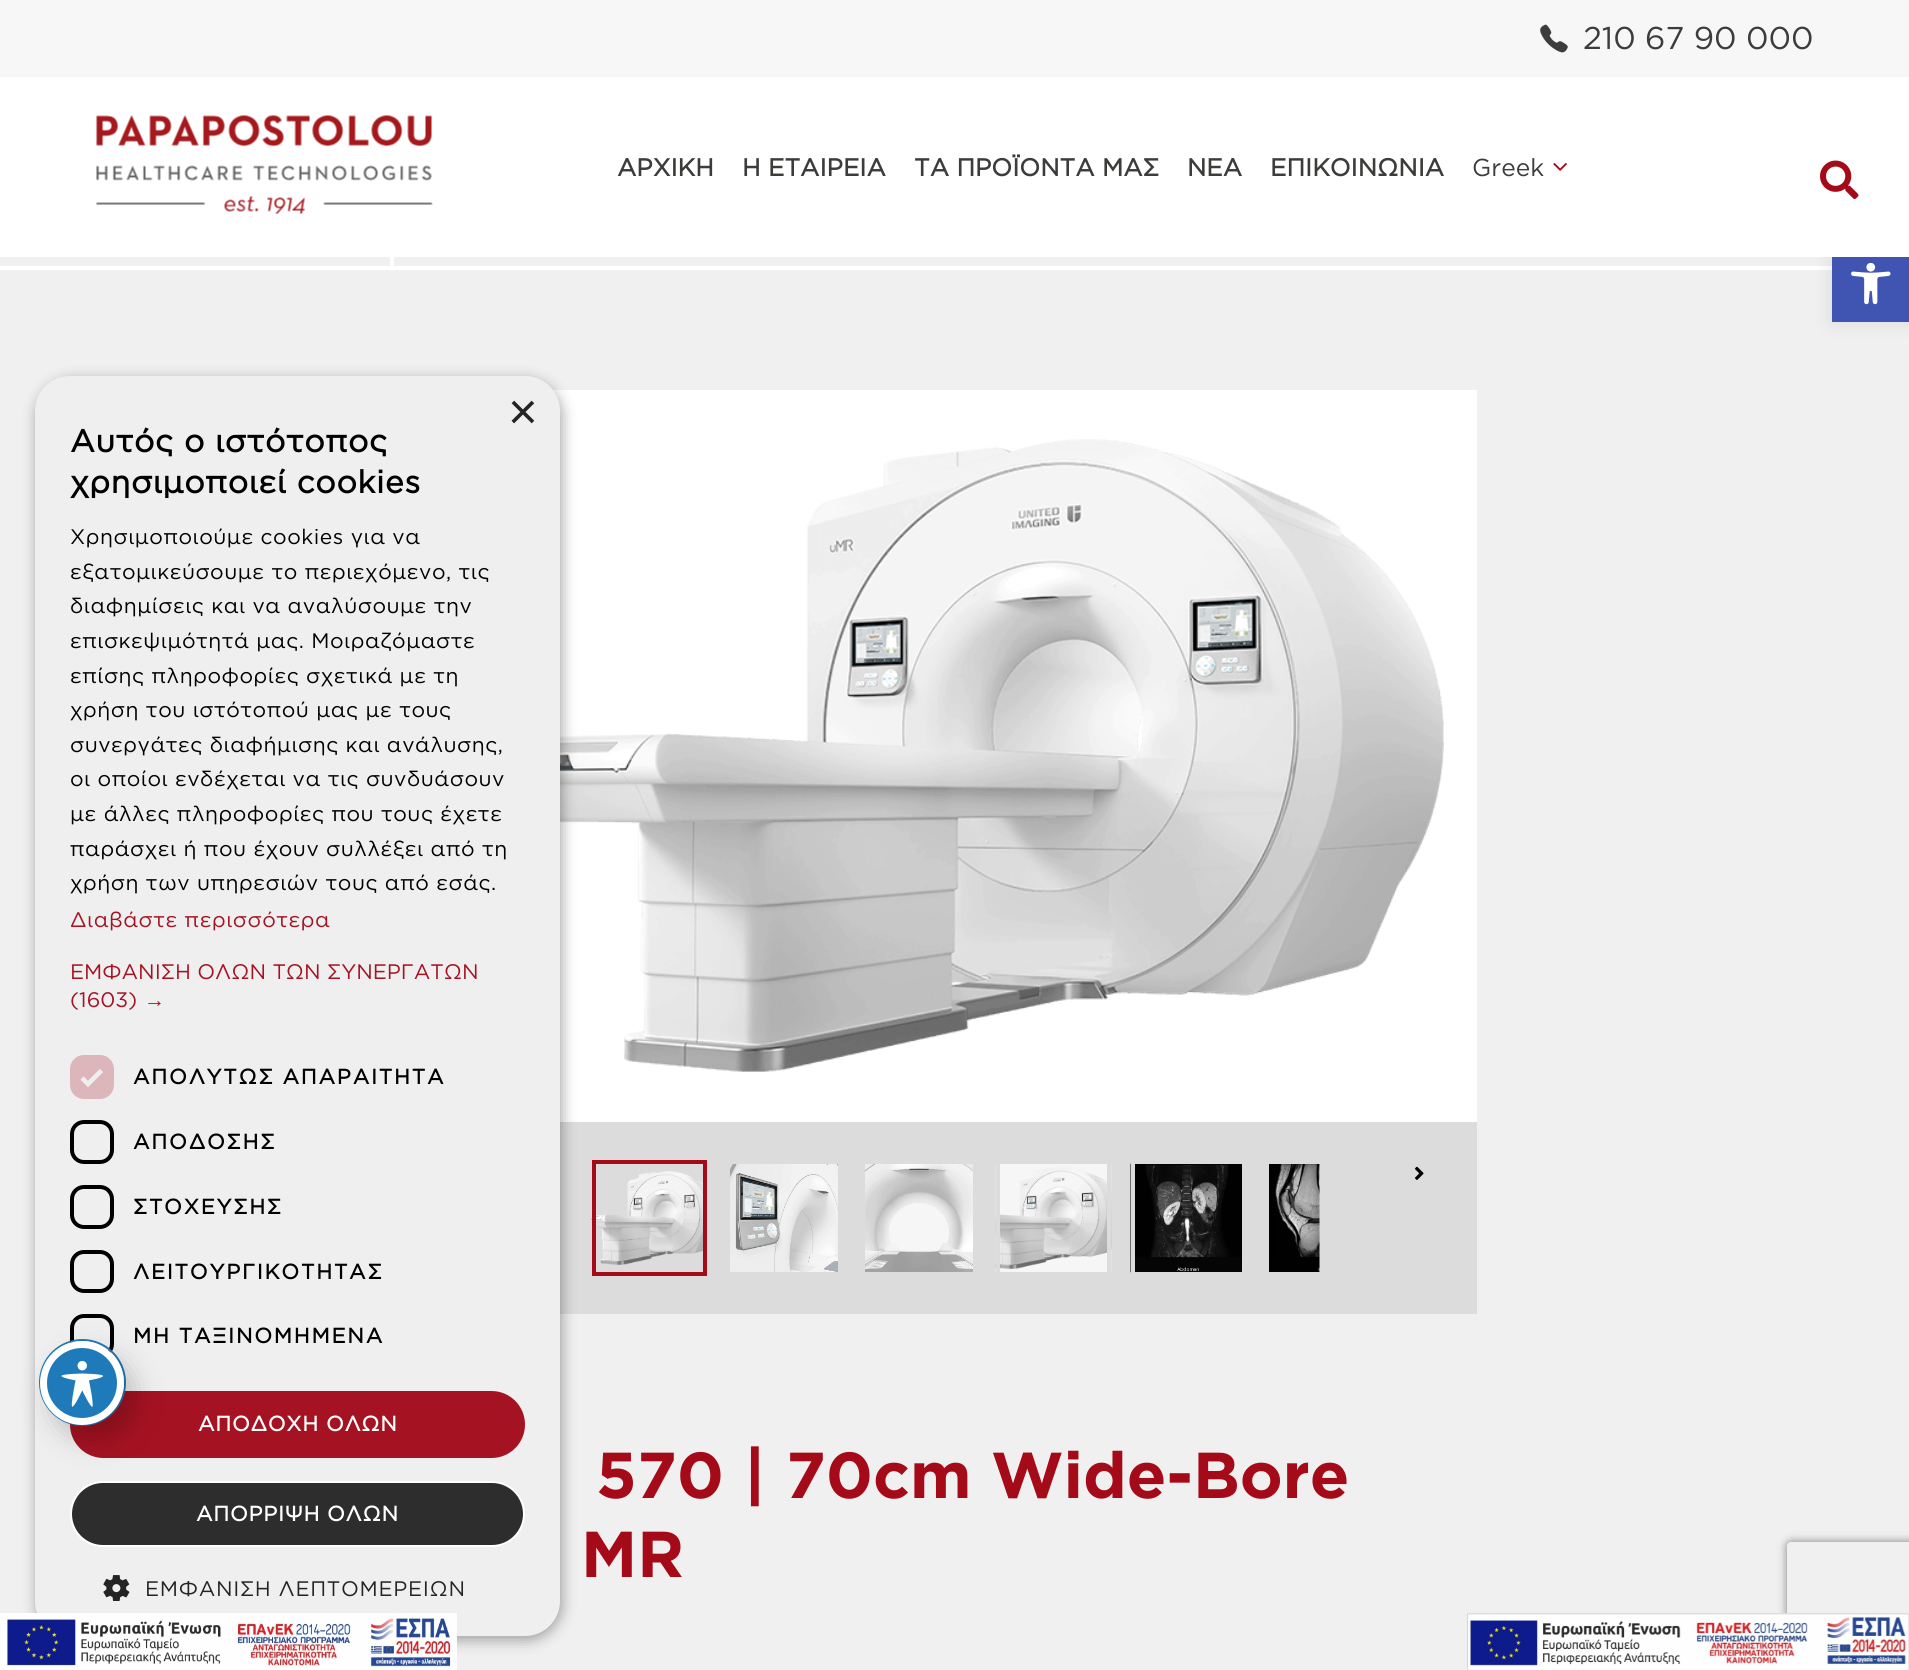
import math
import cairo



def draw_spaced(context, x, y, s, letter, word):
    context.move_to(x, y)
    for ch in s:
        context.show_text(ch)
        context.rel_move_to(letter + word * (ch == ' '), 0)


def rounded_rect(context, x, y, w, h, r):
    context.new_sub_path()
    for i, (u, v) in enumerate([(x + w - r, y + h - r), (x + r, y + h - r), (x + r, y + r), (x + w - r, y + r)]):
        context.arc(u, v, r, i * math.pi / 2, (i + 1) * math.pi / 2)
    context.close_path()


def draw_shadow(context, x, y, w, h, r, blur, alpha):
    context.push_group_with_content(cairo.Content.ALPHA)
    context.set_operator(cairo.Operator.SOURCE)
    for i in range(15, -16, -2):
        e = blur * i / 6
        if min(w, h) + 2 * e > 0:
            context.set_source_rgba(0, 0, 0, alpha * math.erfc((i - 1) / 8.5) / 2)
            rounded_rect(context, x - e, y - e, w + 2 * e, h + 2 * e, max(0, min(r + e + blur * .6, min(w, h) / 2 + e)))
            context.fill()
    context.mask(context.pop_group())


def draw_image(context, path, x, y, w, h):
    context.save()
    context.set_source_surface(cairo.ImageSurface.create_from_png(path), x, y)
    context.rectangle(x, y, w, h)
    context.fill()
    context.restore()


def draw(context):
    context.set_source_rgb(240 / 255, 240 / 255, 240 / 255)
    context.paint()
    context.set_source_rgb(1, 1, 1)
    context.rectangle(0, 266, 1832, 4)
    context.fill()
    context.set_source_rgb(0, 0, 0)
    draw_shadow(context, 1832, 245, 77, 77, 0, 9, 0.1)
    context.set_source_rgb(1, 1, 1)
    context.rectangle(0, 77, 1909, 180)
    context.fill()
    context.set_source_rgb(247 / 255, 247 / 255, 247 / 255)
    context.rectangle(0, 0, 1909, 77)
    context.fill()
    draw_image(context, "images/1.png", 1540, 24, 28, 29)
    draw_image(context, "images/2.png", 96, 115, 337, 99)
    draw_image(context, "images/3.png", 1553, 163, 14, 8)
    draw_image(context, "images/4.png", 1820, 160, 39, 39)
    context.set_source_rgb(64 / 255, 84 / 255, 178 / 255)
    context.rectangle(1832, 257, 77, 65)
    context.fill()
    draw_image(context, "images/5.png", 1851, 263, 40, 42)
    context.set_source_rgb(1, 1, 1)
    context.rectangle(553, 390, 924, 732)
    context.fill()
    draw_image(context, "images/8.png", 560, 439, 884, 633)
    context.set_source_rgb(220 / 255, 220 / 255, 220 / 255)
    context.rectangle(560, 1122, 917, 192)
    context.fill()
    context.set_source_rgb(0, 0, 0)
    draw_shadow(context, 37, 380, 525, 1260, 35, 7, 0.35)
    context.set_source_rgb(239 / 255, 239 / 255, 240 / 255)
    rounded_rect(context, 35, 376, 525, 1260, 35)
    context.fill()
    context.set_source_rgb(220 / 255, 182 / 255, 186 / 255)
    rounded_rect(context, 70, 1055, 44, 44, 14)
    context.fill()
    context.new_path()
    context.move_to(82, 1078)
    context.line_to(88, 1084)
    context.line_to(101.5, 1070.5)
    context.set_source_rgb(239 / 255, 239 / 255, 240 / 255)
    context.set_line_width(4.6)
    context.stroke()
    rounded_rect(context, 72, 1122, 40, 40, 12)
    context.set_source_rgb(0, 0, 0)
    context.set_line_width(4)
    context.stroke()
    rounded_rect(context, 72, 1187, 40, 40, 12)
    context.stroke()
    rounded_rect(context, 72, 1252, 40, 39, 12)
    context.stroke()
    rounded_rect(context, 72, 1316, 40, 40, 12)
    context.stroke()
    context.set_source_rgb(165 / 255, 18 / 255, 34 / 255)
    rounded_rect(context, 70, 1391, 455, 67, 33.5)
    context.fill()
    context.set_source_rgb(45 / 255, 45 / 255, 45 / 255)
    rounded_rect(context, 71, 1482, 453, 64, 32)
    context.fill_preserve()
    context.set_source_rgb(1, 1, 1)
    context.set_line_width(2)
    context.stroke()
    draw_image(context, "images/6.png", 103, 1575, 27, 26)
    context.arc(82.5, 1382.5, 42.5, 0, 2 * math.pi)
    context.set_source_rgb(30 / 255, 122 / 255, 185 / 255)
    context.stroke()
    context.set_source_rgb(0, 0, 0)
    draw_shadow(context, 51, 1355, 84, 84, 42, 14, 0.2)
    context.set_source_rgb(30 / 255, 122 / 255, 185 / 255)
    context.arc(82, 1383, 38.5, 0, 2 * math.pi)
    context.fill_preserve()
    context.set_source_rgb(1, 1, 1)
    context.set_line_width(7)
    context.stroke()
    draw_image(context, "images/7.png", 61, 1360, 42, 47)
    context.rectangle(390, 257, 4, 13)
    context.fill()
    draw_image(context, "images/9.png", 591, 1171, 112, 94)
    context.rectangle(594, 1162, 111, 112)
    context.set_source_rgb(165 / 255, 10 / 255, 25 / 255)
    context.set_line_width(4)
    context.stroke()
    draw_image(context, "images/10.png", 730, 1164, 108, 108)
    draw_image(context, "images/11.png", 865, 1164, 108, 108)
    draw_image(context, "images/12.png", 995, 1163, 117, 110)
    context.rectangle(998, 1162, 111, 112)
    context.set_source_rgb(220 / 255, 220 / 255, 220 / 255)
    context.stroke()
    draw_image(context, "images/13.png", 1130, 1163, 112, 110)
    context.rectangle(1133, 1162, 111, 112)
    context.stroke()
    draw_image(context, "images/14.png", 1269, 1164, 51, 108)
    draw_image(context, "images/15.png", 1415, 1166, 9, 14)
    draw_image(context, "images/16.png", 0, 1613, 457, 57)
    context.save()
    context.set_fill_rule(cairo.FillRule.EVEN_ODD)
    context.new_path()
    context.move_to(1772, 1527)
    context.line_to(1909, 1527)
    context.line_to(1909, 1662)
    context.line_to(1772, 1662)
    context.close_path()
    context.move_to(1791, 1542)
    context.line_to(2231, 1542)
    context.curve_to(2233, 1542, 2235, 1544, 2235, 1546)
    context.line_to(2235, 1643)
    context.curve_to(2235, 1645, 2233, 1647, 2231, 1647)
    context.line_to(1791, 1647)
    context.curve_to(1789, 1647, 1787, 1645, 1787, 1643)
    context.line_to(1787, 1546)
    context.curve_to(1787, 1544, 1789, 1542, 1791, 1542)
    context.close_path()
    context.clip()
    context.set_source_rgb(128 / 255, 128 / 255, 128 / 255)
    draw_shadow(context, 1787, 1542, 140, 105, 4, 4.5, 1)
    context.restore()
    draw_image(context, "images/17.png", 1467, 1613, 442, 57)
    context.select_font_face("Gotham")
    context.set_font_size(31.5)
    context.set_source_rgb(60 / 255, 60 / 255, 59 / 255)
    context.move_to(1583, 49)
    context.show_text("210 67 90 000")
    context.select_font_face("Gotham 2", cairo.FontSlant.NORMAL, cairo.FontWeight.BOLD)
    context.set_font_size(24.5)
    context.move_to(617, 176)
    context.show_text("ΑΡΧΙΚΗ")
    context.move_to(742, 176)
    context.show_text("Η ΕΤΑΙΡΕΙΑ")
    context.move_to(914, 176)
    context.show_text("ΤΑ ΠΡΟΪΟΝΤΑ ΜΑΣ")
    context.move_to(1187, 176)
    context.show_text("ΝΕΑ")
    context.move_to(1270, 176)
    context.show_text("ΕΠΙΚΟΙΝΩΝΙΑ")
    context.select_font_face("Gotham")
    context.move_to(1472, 176)
    context.show_text("Greek")
    context.select_font_face("Liberation Sans")
    context.set_font_size(51)
    context.set_source_rgb(36 / 255, 36 / 255, 36 / 255)
    context.move_to(508, 429)
    context.show_text("×")
    context.select_font_face("Gotham 2", cairo.FontSlant.NORMAL, cairo.FontWeight.BOLD)
    context.set_font_size(31.5)
    context.set_source_rgb(0, 0, 0)
    draw_spaced(context, 70, 452, "Αυτός ο ιστότοπος", 0.7, 0)
    draw_spaced(context, 70, 493, "χρησιμοποιεί cookies", 0.7, 0)
    context.select_font_face("Gotham")
    context.set_font_size(21)
    draw_spaced(context, 70, 544, "Χρησιμοποιούμε cookies για να", 0.55, 0)
    draw_spaced(context, 70, 579, "εξατομικεύσουμε το περιεχόμενο, τις", 0.55, 0)
    draw_spaced(context, 70, 613, "διαφημίσεις και να αναλύσουμε την", 0.55, 0)
    draw_spaced(context, 70, 648, "επισκεψιμότητά μας. Μοιραζόμαστε", 0.55, 0)
    draw_spaced(context, 70, 683, "επίσης πληροφορίες σχετικά με τη", 0.55, 0)
    draw_spaced(context, 70, 717, "χρήση του ιστότοπού μας με τους", 0.55, 0)
    draw_spaced(context, 70, 752, "συνεργάτες διαφήμισης και ανάλυσης,", 0.55, 0)
    draw_spaced(context, 70, 786, "οι οποίοι ενδέχεται να τις συνδυάσουν", 0.55, 0)
    draw_spaced(context, 70, 821, "με άλλες πληροφορίες που τους έχετε", 0.55, 0)
    draw_spaced(context, 70, 856, "παράσχει ή που έχουν συλλέξει από τη", 0.55, 0)
    draw_spaced(context, 70, 890, "χρήση των υπηρεσιών τους από εσάς.", 0.55, 0)
    context.set_source_rgb(165 / 255, 18 / 255, 34 / 255)
    draw_spaced(context, 70, 927, "Διαβάστε περισσότερα", 0.55, 0)
    context.move_to(70, 979)
    context.show_text("ΕΜΦΑΝΙΣΗ ΟΛΩΝ ΤΩΝ ΣΥΝΕΡΓΑΤΩΝ")
    context.move_to(70, 1007)
    context.show_text("(1603)")
    context.select_font_face("Liberation Serif")
    context.move_to(144, 1007)
    context.show_text("→")
    context.select_font_face("Gotham 2", cairo.FontSlant.NORMAL, cairo.FontWeight.BOLD)
    context.set_source_rgb(0, 0, 0)
    draw_spaced(context, 133, 1084, "ΑΠΟΛΥΤΩΣ ΑΠΑΡΑΙΤΗΤΑ", 1.75, 0)
    draw_spaced(context, 133, 1149, "ΑΠΟΔΟΣΗΣ", 1.75, 0)
    draw_spaced(context, 133, 1214, "ΣΤΟΧΕΥΣΗΣ", 1.75, 0)
    draw_spaced(context, 133, 1279, "ΛΕΙΤΟΥΡΓΙΚΟΤΗΤΑΣ", 1.75, 0)
    draw_spaced(context, 133, 1343, "ΜΗ ΤΑΞΙΝΟΜΗΜΕΝΑ", 1.75, 0)
    context.set_source_rgb(1, 1, 1)
    draw_spaced(context, 198, 1431, "ΑΠΟΔΟΧΗ ΟΛΩΝ", 0.7, 0)
    draw_spaced(context, 196, 1521, "ΑΠΟΡΡΙΨΗ ΟΛΩΝ", 0.7, 0)
    context.select_font_face("Gotham")
    context.set_source_rgb(36 / 255, 36 / 255, 36 / 255)
    draw_spaced(context, 145, 1596, "ΕΜΦΑΝΙΣΗ ΛΕΠΤΟΜΕΡΕΙΩΝ", 0.7, 0)
    context.select_font_face("Gotham", cairo.FontSlant.NORMAL, cairo.FontWeight.BOLD)
    context.set_font_size(64.75)
    context.set_source_rgb(165 / 255, 10 / 255, 25 / 255)
    context.move_to(596, 1498)
    context.show_text("570 | 70cm Wide-Bore")
    context.move_to(581, 1577)
    context.show_text("MR")


surface = cairo.ImageSurface(cairo.Format.RGB24, 1909, 1670)
context = cairo.Context(surface)
options = cairo.FontOptions()
options.set_hint_metrics(cairo.HintMetrics.OFF)
options.set_hint_style(cairo.HintStyle.NONE)
context.set_font_options(options)
context.set_miter_limit(4)
draw(context)
surface.write_to_png("out.png")
